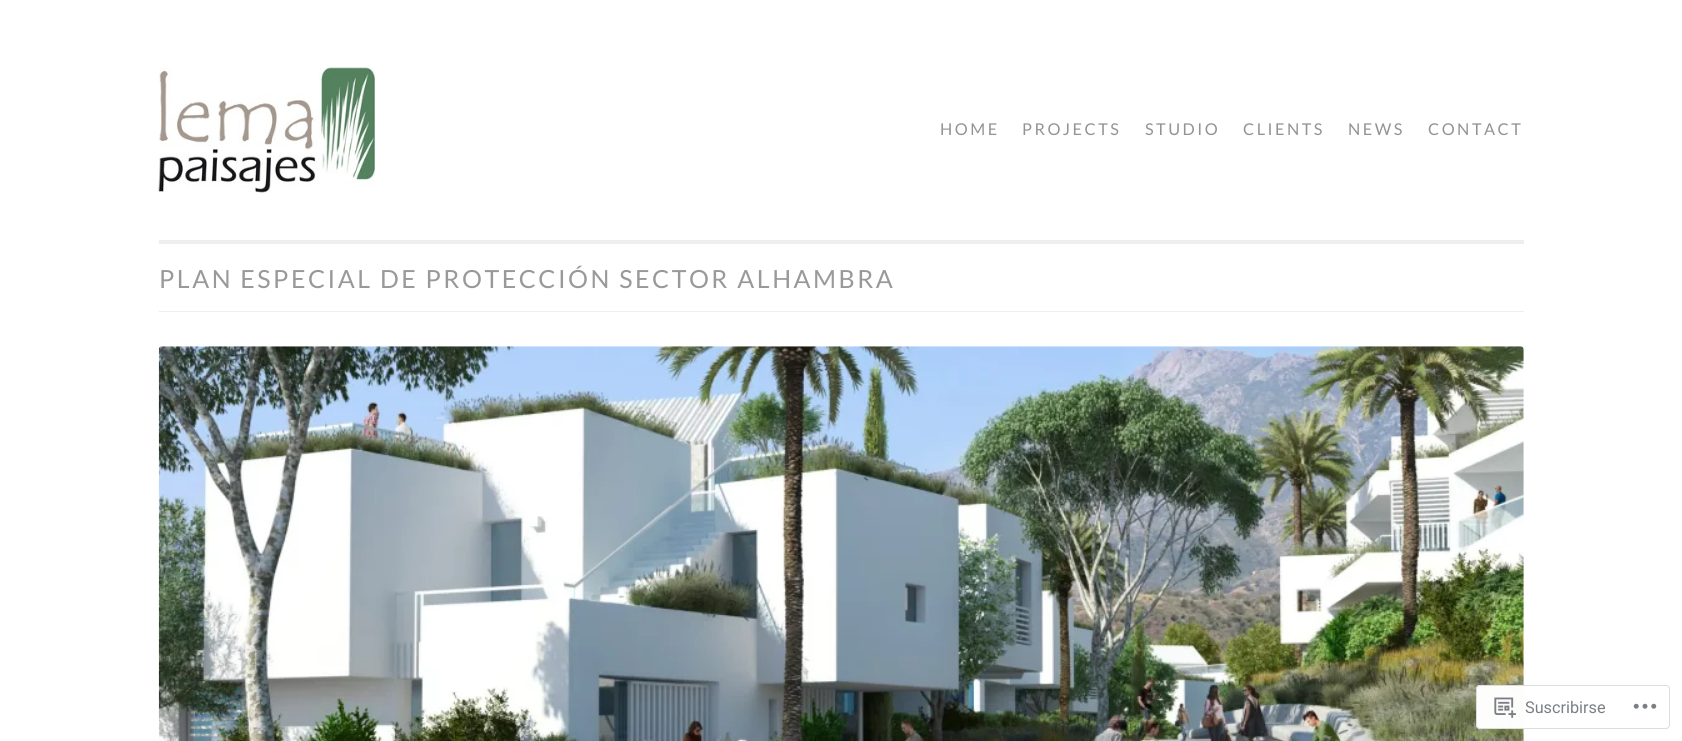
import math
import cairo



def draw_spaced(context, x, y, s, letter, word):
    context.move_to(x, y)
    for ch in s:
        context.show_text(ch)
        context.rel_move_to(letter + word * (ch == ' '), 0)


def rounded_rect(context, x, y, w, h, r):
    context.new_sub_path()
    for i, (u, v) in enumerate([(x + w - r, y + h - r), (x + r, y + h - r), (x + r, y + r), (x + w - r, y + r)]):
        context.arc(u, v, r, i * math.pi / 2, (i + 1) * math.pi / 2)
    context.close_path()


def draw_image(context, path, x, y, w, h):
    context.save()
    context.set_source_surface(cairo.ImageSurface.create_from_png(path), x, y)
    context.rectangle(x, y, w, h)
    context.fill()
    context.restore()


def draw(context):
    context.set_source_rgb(1, 1, 1)
    context.paint()
    context.set_source_rgb(238 / 255, 238 / 255, 238 / 255)
    context.rectangle(159, 240, 1365, 4)
    context.fill()
    draw_image(context, "images/1.png", 158, 67, 217, 126)
    context.rectangle(159, 311, 1365, 1)
    context.fill()
    draw_image(context, "images/2.png", 158, 346, 1366, 395)
    context.set_source_rgba(1, 1, 1, 0.98)
    rounded_rect(context, 1476, 685, 194, 44, 4)
    context.fill()
    rounded_rect(context, 1476.5, 685.5, 193, 43, 3.5)
    context.set_source_rgba(220 / 255, 220 / 255, 222 / 255, 0.98)
    context.set_line_width(1)
    context.stroke()
    draw_image(context, "images/3.png", 1494, 697, 22, 21)
    draw_image(context, "images/4.png", 1633, 703, 24, 6)
    context.select_font_face("Lato")
    context.set_font_size(16.25)
    context.set_source_rgb(147 / 255, 147 / 255, 147 / 255)
    draw_spaced(context, 940, 135, "HOME", 2.5, 0)
    draw_spaced(context, 1022, 135, "PROJECTS", 2.5, 0)
    draw_spaced(context, 1145, 135, "STUDIO", 2.5, 0)
    draw_spaced(context, 1243, 135, "CLIENTS", 2.5, 0)
    draw_spaced(context, 1348, 135, "NEWS", 2.5, 0)
    draw_spaced(context, 1428, 135, "CONTACT", 2.5, 0)
    context.set_font_size(25)
    context.set_source_rgb(153 / 255, 153 / 255, 153 / 255)
    draw_spaced(context, 159, 288, "PLAN ESPECIAL DE PROTECCIÓN SECTOR ALHAMBRA", 2.5, 0)
    context.select_font_face("Roboto")
    context.set_font_size(16.25)
    context.set_source_rgb(123 / 255, 127 / 255, 133 / 255)
    context.move_to(1525, 713)
    context.show_text("Suscribirse")


surface = cairo.ImageSurface(cairo.Format.RGB24, 1682, 741)
context = cairo.Context(surface)
options = cairo.FontOptions()
options.set_hint_metrics(cairo.HintMetrics.OFF)
options.set_hint_style(cairo.HintStyle.NONE)
context.set_font_options(options)
context.set_miter_limit(4)
draw(context)
surface.write_to_png("out.png")
